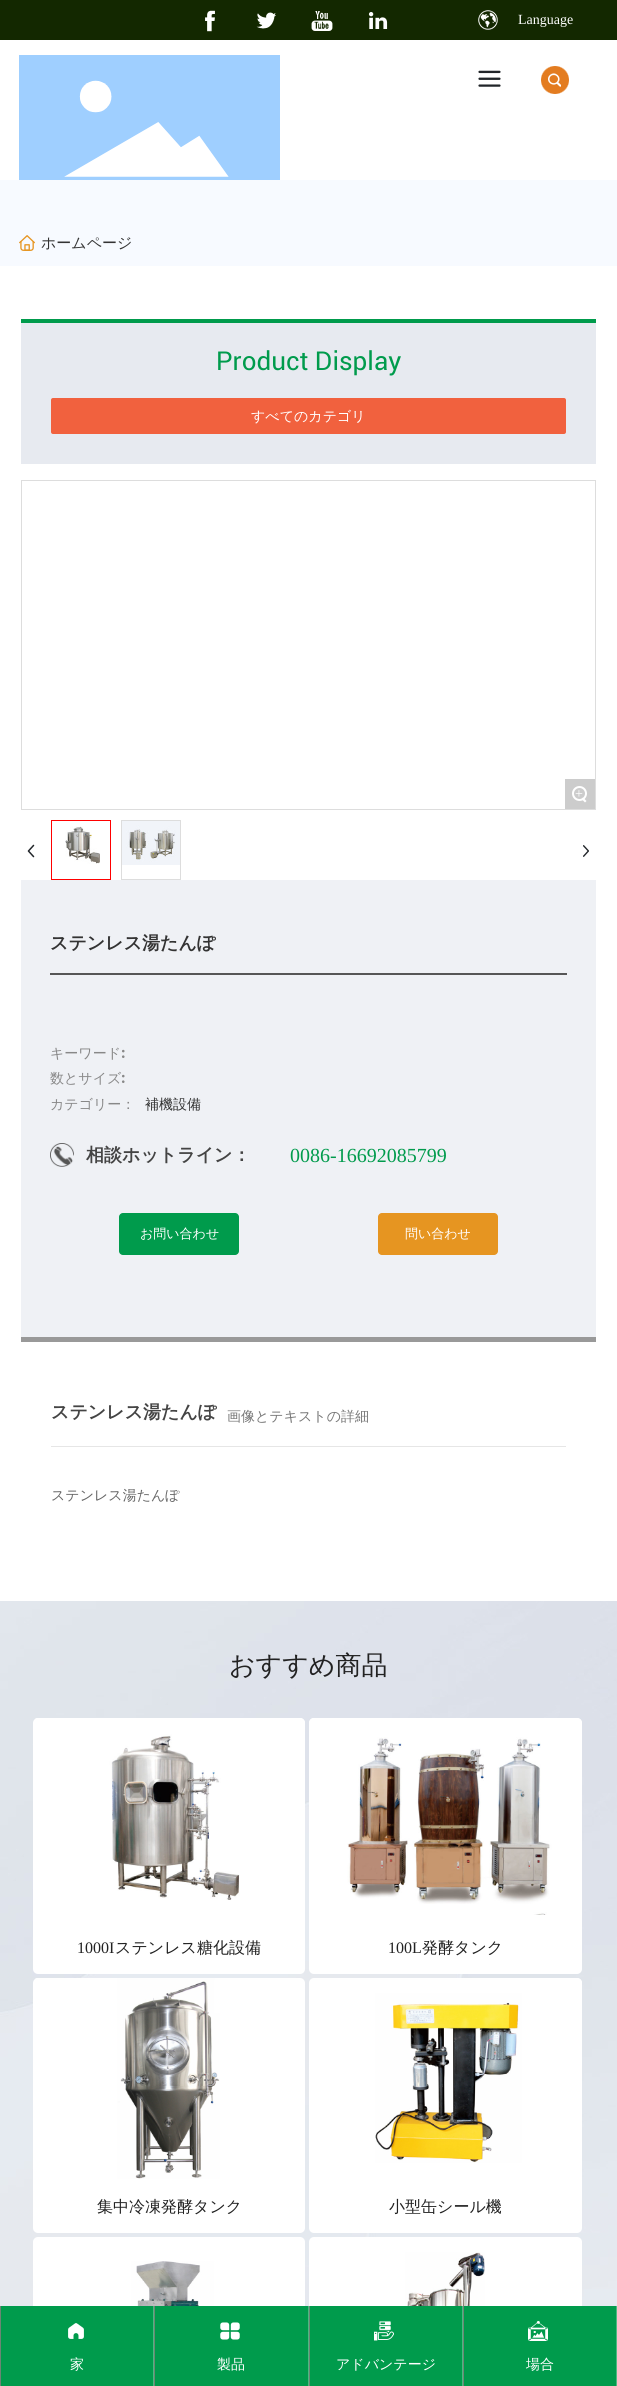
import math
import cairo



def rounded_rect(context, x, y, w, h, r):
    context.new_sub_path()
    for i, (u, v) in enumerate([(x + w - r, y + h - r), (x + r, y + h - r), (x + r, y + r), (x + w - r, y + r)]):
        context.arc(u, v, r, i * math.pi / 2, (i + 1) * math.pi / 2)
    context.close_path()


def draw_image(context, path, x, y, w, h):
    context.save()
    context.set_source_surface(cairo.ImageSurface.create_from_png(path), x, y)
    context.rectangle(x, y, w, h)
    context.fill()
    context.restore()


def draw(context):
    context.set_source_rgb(1, 1, 1)
    context.paint()
    context.set_source_rgb(19 / 255, 40 / 255, 0)
    context.rectangle(0, 0, 617, 40)
    context.fill()
    draw_image(context, "images/1.png", 205, 10, 10, 22)
    draw_image(context, "images/2.png", 256, 12, 20, 17)
    draw_image(context, "images/3.png", 311, 11, 22, 20)
    draw_image(context, "images/4.png", 368, 12, 20, 17)
    draw_image(context, "images/5.png", 478, 10, 20, 20)
    draw_image(context, "images/6.png", 19, 55, 261, 125)
    draw_image(context, "images/7.png", 478, 70, 23, 17)
    draw_image(context, "images/8.png", 541, 66, 28, 28)
    context.set_source_rgb(247 / 255, 250 / 255, 1)
    context.rectangle(0, 180, 617, 86)
    context.fill()
    draw_image(context, "images/9.png", 19, 235, 16, 16)
    context.set_source_rgb(231 / 255, 234 / 255, 240 / 255)
    context.rectangle(21, 323, 575, 141)
    context.fill()
    context.set_source_rgb(0, 155 / 255, 76 / 255)
    context.rectangle(21, 319, 575, 4)
    context.fill()
    context.set_source_rgb(241 / 255, 97 / 255, 62 / 255)
    rounded_rect(context, 51, 398, 515, 36, 2)
    context.fill()
    context.set_source_rgb(153 / 255, 153 / 255, 153 / 255)
    context.rectangle(21, 1337, 575, 5)
    context.fill()
    context.rectangle(21.5, 480.5, 574, 329)
    context.set_source_rgb(221 / 255, 221 / 255, 221 / 255)
    context.set_line_width(1)
    context.stroke()
    context.set_source_rgb(204 / 255, 204 / 255, 204 / 255)
    context.rectangle(565, 779, 30, 30)
    context.fill()
    context.arc(579.5, 793.5, 6.5, 0, 2 * math.pi)
    context.set_source_rgb(1, 1, 1)
    context.set_line_width(2)
    context.stroke()
    context.new_path()
    context.move_to(583, 797.5)
    context.line_to(586.5, 801)
    context.line_to(585, 802.5)
    context.line_to(581.5, 799)
    context.close_path()
    context.fill()
    context.rectangle(51.5, 820.5, 59, 59)
    context.set_source_rgb(1, 0, 0)
    context.set_line_width(1)
    context.stroke()
    draw_image(context, "images/10.png", 65, 826, 35, 38)
    context.rectangle(121.5, 820.5, 59, 59)
    context.set_source_rgb(221 / 255, 221 / 255, 221 / 255)
    context.stroke()
    draw_image(context, "images/11.png", 122, 821, 58, 44)
    draw_image(context, "images/12.png", 27, 844, 8, 14)
    draw_image(context, "images/13.png", 583, 845, 6, 12)
    context.set_source_rgb(239 / 255, 241 / 255, 245 / 255)
    context.rectangle(21, 880, 575, 457)
    context.fill()
    context.set_source_rgb(86 / 255, 86 / 255, 86 / 255)
    context.rectangle(50, 973, 517, 2)
    context.fill()
    draw_image(context, "images/14.png", 50, 1143, 24, 24)
    context.set_source_rgb(0, 155 / 255, 76 / 255)
    rounded_rect(context, 119, 1213, 120, 42, 4)
    context.fill()
    context.set_source_rgb(230 / 255, 149 / 255, 33 / 255)
    rounded_rect(context, 378, 1213, 120, 42, 4)
    context.fill()
    context.set_source_rgb(230 / 255, 230 / 255, 230 / 255)
    context.rectangle(51, 1446, 515, 1)
    context.fill()
    draw_image(context, "images/15.png", 0, 1601, 617, 705)
    context.set_source_rgb(1, 1, 1)
    rounded_rect(context, 33, 1718, 272, 256, 5)
    context.fill()
    draw_image(context, "images/16.png", 35, 1718, 270, 182)
    rounded_rect(context, 309, 1718, 273, 256, 5)
    context.fill()
    draw_image(context, "images/17.png", 309, 1718, 273, 197)
    rounded_rect(context, 33, 1978, 272, 255, 5)
    context.fill()
    draw_image(context, "images/18.png", 35, 1978, 185, 201)
    rounded_rect(context, 309, 1978, 273, 255, 5)
    context.fill()
    draw_image(context, "images/19.png", 375, 1978, 207, 185)
    rounded_rect(context, 33, 2237, 272, 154, 5)
    context.fill()
    draw_image(context, "images/20.png", 131, 2261, 83, 45)
    rounded_rect(context, 309, 2237, 273, 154, 5)
    context.fill()
    draw_image(context, "images/21.png", 405, 2252, 80, 54)
    context.set_source_rgb(0, 155 / 255, 76 / 255)
    context.rectangle(1, 2306, 615, 80)
    context.fill()
    context.set_source_rgb(77 / 255, 185 / 255, 130 / 255)
    context.rectangle(153, 2306, 1, 80)
    context.fill()
    context.set_source_rgb(108 / 255, 133 / 255, 116 / 255)
    context.rectangle(0, 2306, 1, 80)
    context.fill()
    draw_image(context, "images/22.png", 68, 2323, 16, 16)
    context.set_source_rgb(77 / 255, 185 / 255, 130 / 255)
    context.rectangle(308, 2306, 1, 80)
    context.fill()
    context.set_source_rgb(108 / 255, 133 / 255, 116 / 255)
    context.rectangle(154, 2306, 1, 80)
    context.fill()
    draw_image(context, "images/23.png", 220, 2322, 20, 18)
    context.set_source_rgb(77 / 255, 185 / 255, 130 / 255)
    context.rectangle(462, 2306, 1, 80)
    context.fill()
    context.set_source_rgb(108 / 255, 133 / 255, 116 / 255)
    context.rectangle(309, 2306, 1, 80)
    context.fill()
    draw_image(context, "images/24.png", 374, 2321, 20, 20)
    context.set_source_rgb(77 / 255, 185 / 255, 130 / 255)
    context.rectangle(616, 2306, 1, 80)
    context.fill()
    context.set_source_rgb(108 / 255, 133 / 255, 116 / 255)
    context.rectangle(463, 2306, 1, 80)
    context.fill()
    draw_image(context, "images/25.png", 528, 2321, 20, 20)
    context.select_font_face("Liberation Serif")
    context.set_font_size(14)
    context.set_source_rgb(1, 1, 1)
    context.move_to(518, 24)
    context.show_text("Language")
    context.select_font_face("WenQuanYi Zen Hei Medium")
    context.set_font_size(15)
    context.set_source_rgb(51 / 255, 51 / 255, 51 / 255)
    context.move_to(41, 248)
    context.show_text("ホームページ")
    context.select_font_face("Roboto")
    context.set_font_size(26)
    context.set_source_rgb(0, 155 / 255, 76 / 255)
    context.move_to(216, 370)
    context.show_text("Product Display")
    context.select_font_face("WenQuanYi Zen Hei Medium")
    context.set_font_size(14)
    context.set_source_rgb(1, 1, 1)
    context.move_to(251, 421)
    context.show_text("すべてのカテゴリ")
    context.select_font_face("Liberation Serif")
    context.move_to(575, 798)
    context.show_text("+")
    context.select_font_face("WenQuanYi Zen Hei", cairo.FontSlant.NORMAL, cairo.FontWeight.BOLD)
    context.set_font_size(18)
    context.set_source_rgb(51 / 255, 51 / 255, 51 / 255)
    context.move_to(50, 949)
    context.show_text("ステンレス湯たんぽ")
    context.select_font_face("WenQuanYi Zen Hei Medium")
    context.set_font_size(14)
    context.set_source_rgb(136 / 255, 136 / 255, 136 / 255)
    context.move_to(50, 1058)
    context.show_text("キーワード")
    context.select_font_face("Poppins", cairo.FontSlant.NORMAL, cairo.FontWeight.BOLD)
    context.move_to(121, 1058)
    context.show_text(":")
    context.select_font_face("WenQuanYi Zen Hei Medium")
    context.move_to(50, 1083)
    context.show_text("数とサイズ")
    context.select_font_face("Poppins", cairo.FontSlant.NORMAL, cairo.FontWeight.BOLD)
    context.move_to(121, 1083)
    context.show_text(":")
    context.select_font_face("WenQuanYi Zen Hei Medium")
    context.move_to(50, 1109)
    context.show_text("カテゴリー：")
    context.set_source_rgb(51 / 255, 51 / 255, 51 / 255)
    context.move_to(145, 1109)
    context.show_text("補機設備")
    context.select_font_face("WenQuanYi Zen Hei", cairo.FontSlant.NORMAL, cairo.FontWeight.BOLD)
    context.set_font_size(18)
    context.set_source_rgb(68 / 255, 68 / 255, 68 / 255)
    context.move_to(86, 1161)
    context.show_text("相談ホットライン：")
    context.select_font_face("Liberation Serif")
    context.set_font_size(20)
    context.set_source_rgb(0, 155 / 255, 76 / 255)
    context.move_to(290, 1162)
    context.show_text("0086-16692085799")
    context.select_font_face("WenQuanYi Zen Hei Medium")
    context.set_font_size(13)
    context.set_source_rgb(1, 1, 1)
    context.move_to(140, 1238)
    context.show_text("お問い合わせ")
    context.move_to(405, 1238)
    context.show_text("問い合わせ")
    context.select_font_face("WenQuanYi Zen Hei", cairo.FontSlant.NORMAL, cairo.FontWeight.BOLD)
    context.set_font_size(18)
    context.set_source_rgb(68 / 255, 68 / 255, 68 / 255)
    context.move_to(51, 1418)
    context.show_text("ステンレス湯たんぽ")
    context.select_font_face("WenQuanYi Zen Hei Medium")
    context.set_font_size(14)
    context.set_source_rgb(119 / 255, 119 / 255, 119 / 255)
    context.move_to(227, 1421)
    context.show_text("画像とテキストの詳細")
    context.set_source_rgb(102 / 255, 102 / 255, 102 / 255)
    context.move_to(51, 1500)
    context.show_text("ステンレス湯たんぽ")
    context.set_font_size(26)
    context.set_source_rgb(34 / 255, 34 / 255, 34 / 255)
    context.move_to(229, 1674)
    context.show_text("おすすめ商品")
    context.select_font_face("Liberation Serif")
    context.set_font_size(16)
    context.move_to(77, 1953)
    context.show_text("1000I")
    context.select_font_face("WenQuanYi Zen Hei Medium")
    context.move_to(115, 1953)
    context.show_text("ステンレス糖化設備")
    context.select_font_face("Liberation Serif")
    context.move_to(388, 1953)
    context.show_text("100L")
    context.select_font_face("WenQuanYi Zen Hei Medium")
    context.move_to(422, 1953)
    context.show_text("発酵タンク")
    context.move_to(97, 2212)
    context.show_text("集中冷凍発酵タンク")
    context.move_to(389, 2212)
    context.show_text("小型缶シール機")
    context.set_font_size(14)
    context.set_source_rgb(1, 1, 1)
    context.move_to(70, 2369)
    context.show_text("家")
    context.move_to(217, 2369)
    context.show_text("製品")
    context.move_to(336, 2369)
    context.show_text("アドバンテージ")
    context.move_to(526, 2369)
    context.show_text("場合")


surface = cairo.ImageSurface(cairo.Format.RGB24, 617, 2386)
context = cairo.Context(surface)
options = cairo.FontOptions()
options.set_hint_metrics(cairo.HintMetrics.OFF)
options.set_hint_style(cairo.HintStyle.NONE)
context.set_font_options(options)
context.set_miter_limit(4)
draw(context)
surface.write_to_png("out.png")
